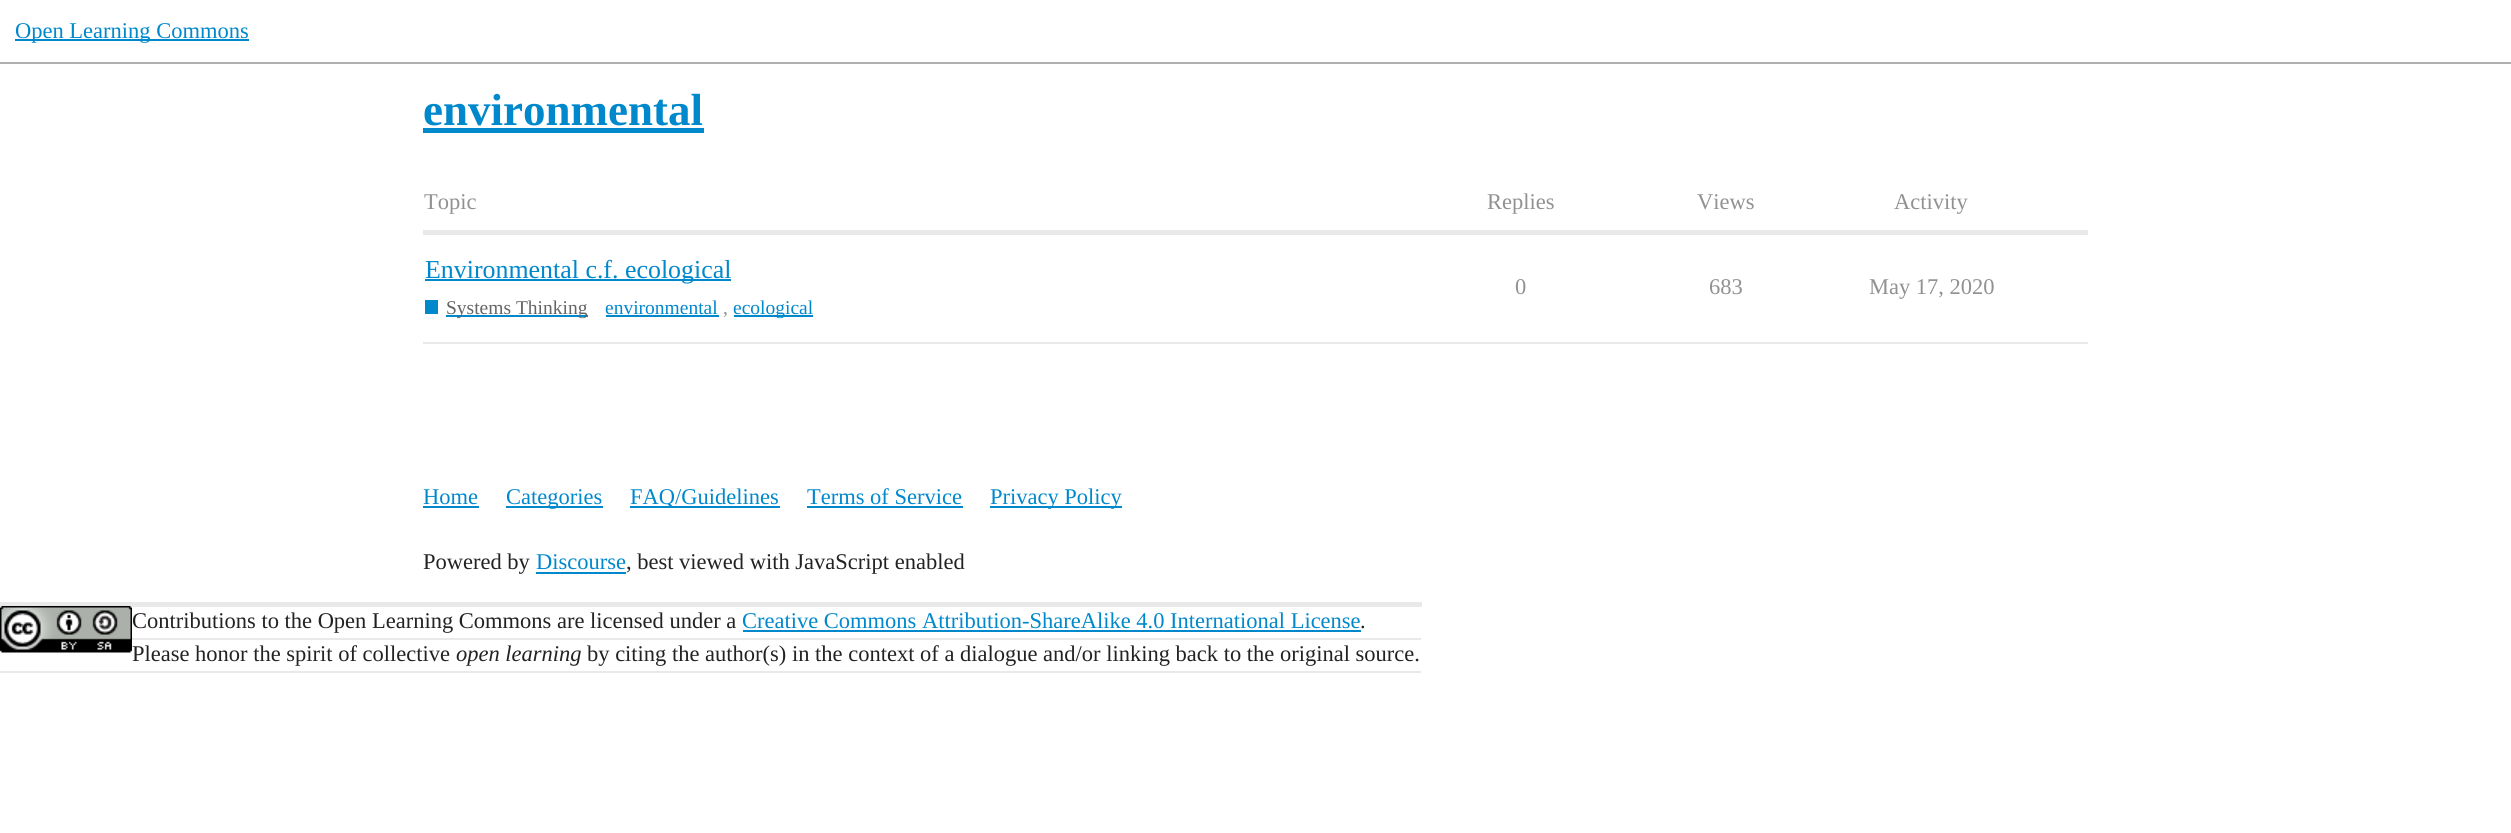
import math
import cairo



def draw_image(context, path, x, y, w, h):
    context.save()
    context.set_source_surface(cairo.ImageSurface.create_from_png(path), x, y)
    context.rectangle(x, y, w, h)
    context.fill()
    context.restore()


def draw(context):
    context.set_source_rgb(1, 1, 1)
    context.paint()
    context.set_source_rgb(175 / 255, 175 / 255, 175 / 255)
    context.rectangle(0, 62, 2511, 2)
    context.fill()
    context.set_source_rgb(0, 136 / 255, 204 / 255)
    context.rectangle(15, 39, 234, 2)
    context.fill()
    context.rectangle(423, 128, 281, 5)
    context.fill()
    context.set_source_rgb(233 / 255, 233 / 255, 233 / 255)
    context.rectangle(423, 230, 1665, 5)
    context.fill()
    context.rectangle(423, 342, 1665, 2)
    context.fill()
    context.set_source_rgb(0, 136 / 255, 204 / 255)
    context.rectangle(425, 279, 306, 2)
    context.fill()
    context.rectangle(425, 300, 13, 14)
    context.fill()
    context.rectangle(446, 315, 142, 2)
    context.fill()
    context.rectangle(606, 315, 113, 2)
    context.fill()
    context.rectangle(734, 315, 79, 2)
    context.fill()
    context.rectangle(423, 506, 56, 2)
    context.fill()
    context.rectangle(506, 506, 97, 2)
    context.fill()
    context.rectangle(630, 506, 150, 2)
    context.fill()
    context.rectangle(807, 506, 156, 2)
    context.fill()
    context.rectangle(990, 506, 132, 2)
    context.fill()
    context.rectangle(536, 572, 90, 2)
    context.fill()
    context.set_source_rgb(233 / 255, 233 / 255, 233 / 255)
    context.rectangle(0, 602, 1422, 5)
    context.fill()
    context.rectangle(132, 638, 1289, 2)
    context.fill()
    draw_image(context, "images/1.png", 0, 606, 132, 47)
    context.set_source_rgb(0, 136 / 255, 204 / 255)
    context.rectangle(743, 630, 618, 2)
    context.fill()
    context.set_source_rgb(233 / 255, 233 / 255, 233 / 255)
    context.rectangle(0, 671, 1421, 2)
    context.fill()
    context.select_font_face("Liberation Serif")
    context.set_font_size(22.5)
    context.set_source_rgb(0, 136 / 255, 204 / 255)
    context.move_to(15, 38)
    context.show_text("Open Learning Commons")
    context.select_font_face("Liberation Serif", cairo.FontSlant.NORMAL, cairo.FontWeight.BOLD)
    context.set_font_size(45)
    context.move_to(423, 125)
    context.show_text("environmental")
    context.select_font_face("Liberation Serif")
    context.set_font_size(22.5)
    context.set_source_rgb(145 / 255, 145 / 255, 145 / 255)
    context.move_to(424, 209)
    context.show_text("Topic")
    context.move_to(1487, 209)
    context.show_text("Replies")
    context.move_to(1697, 209)
    context.show_text("Views")
    context.move_to(1894, 209)
    context.show_text("Activity")
    context.set_font_size(25.9)
    context.set_source_rgb(0, 136 / 255, 204 / 255)
    context.move_to(425, 278)
    context.show_text("Environmental c.f. ecological")
    context.set_font_size(19.5)
    context.set_source_rgb(100 / 255, 100 / 255, 100 / 255)
    context.move_to(446, 314)
    context.show_text("Systems Thinking")
    context.set_source_rgb(0, 136 / 255, 204 / 255)
    context.move_to(605, 314)
    context.show_text("environmental")
    context.set_source_rgb(145 / 255, 145 / 255, 145 / 255)
    context.move_to(723, 314)
    context.show_text(",")
    context.set_source_rgb(0, 136 / 255, 204 / 255)
    context.move_to(733, 314)
    context.show_text("ecological")
    context.set_font_size(22.5)
    context.set_source_rgb(145 / 255, 145 / 255, 145 / 255)
    context.move_to(1515, 294)
    context.show_text("0")
    context.move_to(1709, 294)
    context.show_text("683")
    context.move_to(1869, 294)
    context.show_text("May 17, 2020")
    context.set_source_rgb(0, 136 / 255, 204 / 255)
    context.move_to(423, 504)
    context.show_text("Home")
    context.move_to(506, 504)
    context.show_text("Categories")
    context.move_to(630, 504)
    context.show_text("FAQ/Guidelines")
    context.move_to(807, 504)
    context.show_text("Terms of Service")
    context.move_to(990, 504)
    context.show_text("Privacy Policy")
    context.set_source_rgb(34 / 255, 34 / 255, 34 / 255)
    context.move_to(423, 569)
    context.show_text("Powered by")
    context.set_source_rgb(0, 136 / 255, 204 / 255)
    context.move_to(536, 569)
    context.show_text("Discourse")
    context.set_source_rgb(34 / 255, 34 / 255, 34 / 255)
    context.move_to(626, 569)
    context.show_text(", best viewed with JavaScript enabled")
    context.move_to(132, 628)
    context.show_text("Contributions to the Open Learning Commons are licensed under a")
    context.set_source_rgb(0, 136 / 255, 204 / 255)
    context.move_to(742, 628)
    context.show_text("Creative Commons Attribution-ShareAlike 4.0 International License")
    context.set_source_rgb(34 / 255, 34 / 255, 34 / 255)
    context.move_to(1360, 628)
    context.show_text(".")
    context.move_to(132, 661)
    context.show_text("Please honor the spirit of collective")
    context.select_font_face("Liberation Serif", cairo.FontSlant.ITALIC)
    context.move_to(456, 661)
    context.show_text("open learning")
    context.select_font_face("Liberation Serif")
    context.move_to(587, 661)
    context.show_text("by citing the author(s) in the context of a dialogue and/or linking back to the")
    context.move_to(1280, 661)
    context.show_text("original source.")


surface = cairo.ImageSurface(cairo.Format.RGB24, 2511, 833)
context = cairo.Context(surface)
options = cairo.FontOptions()
options.set_hint_metrics(cairo.HintMetrics.OFF)
options.set_hint_style(cairo.HintStyle.NONE)
context.set_font_options(options)
context.set_miter_limit(4)
draw(context)
surface.write_to_png("out.png")
